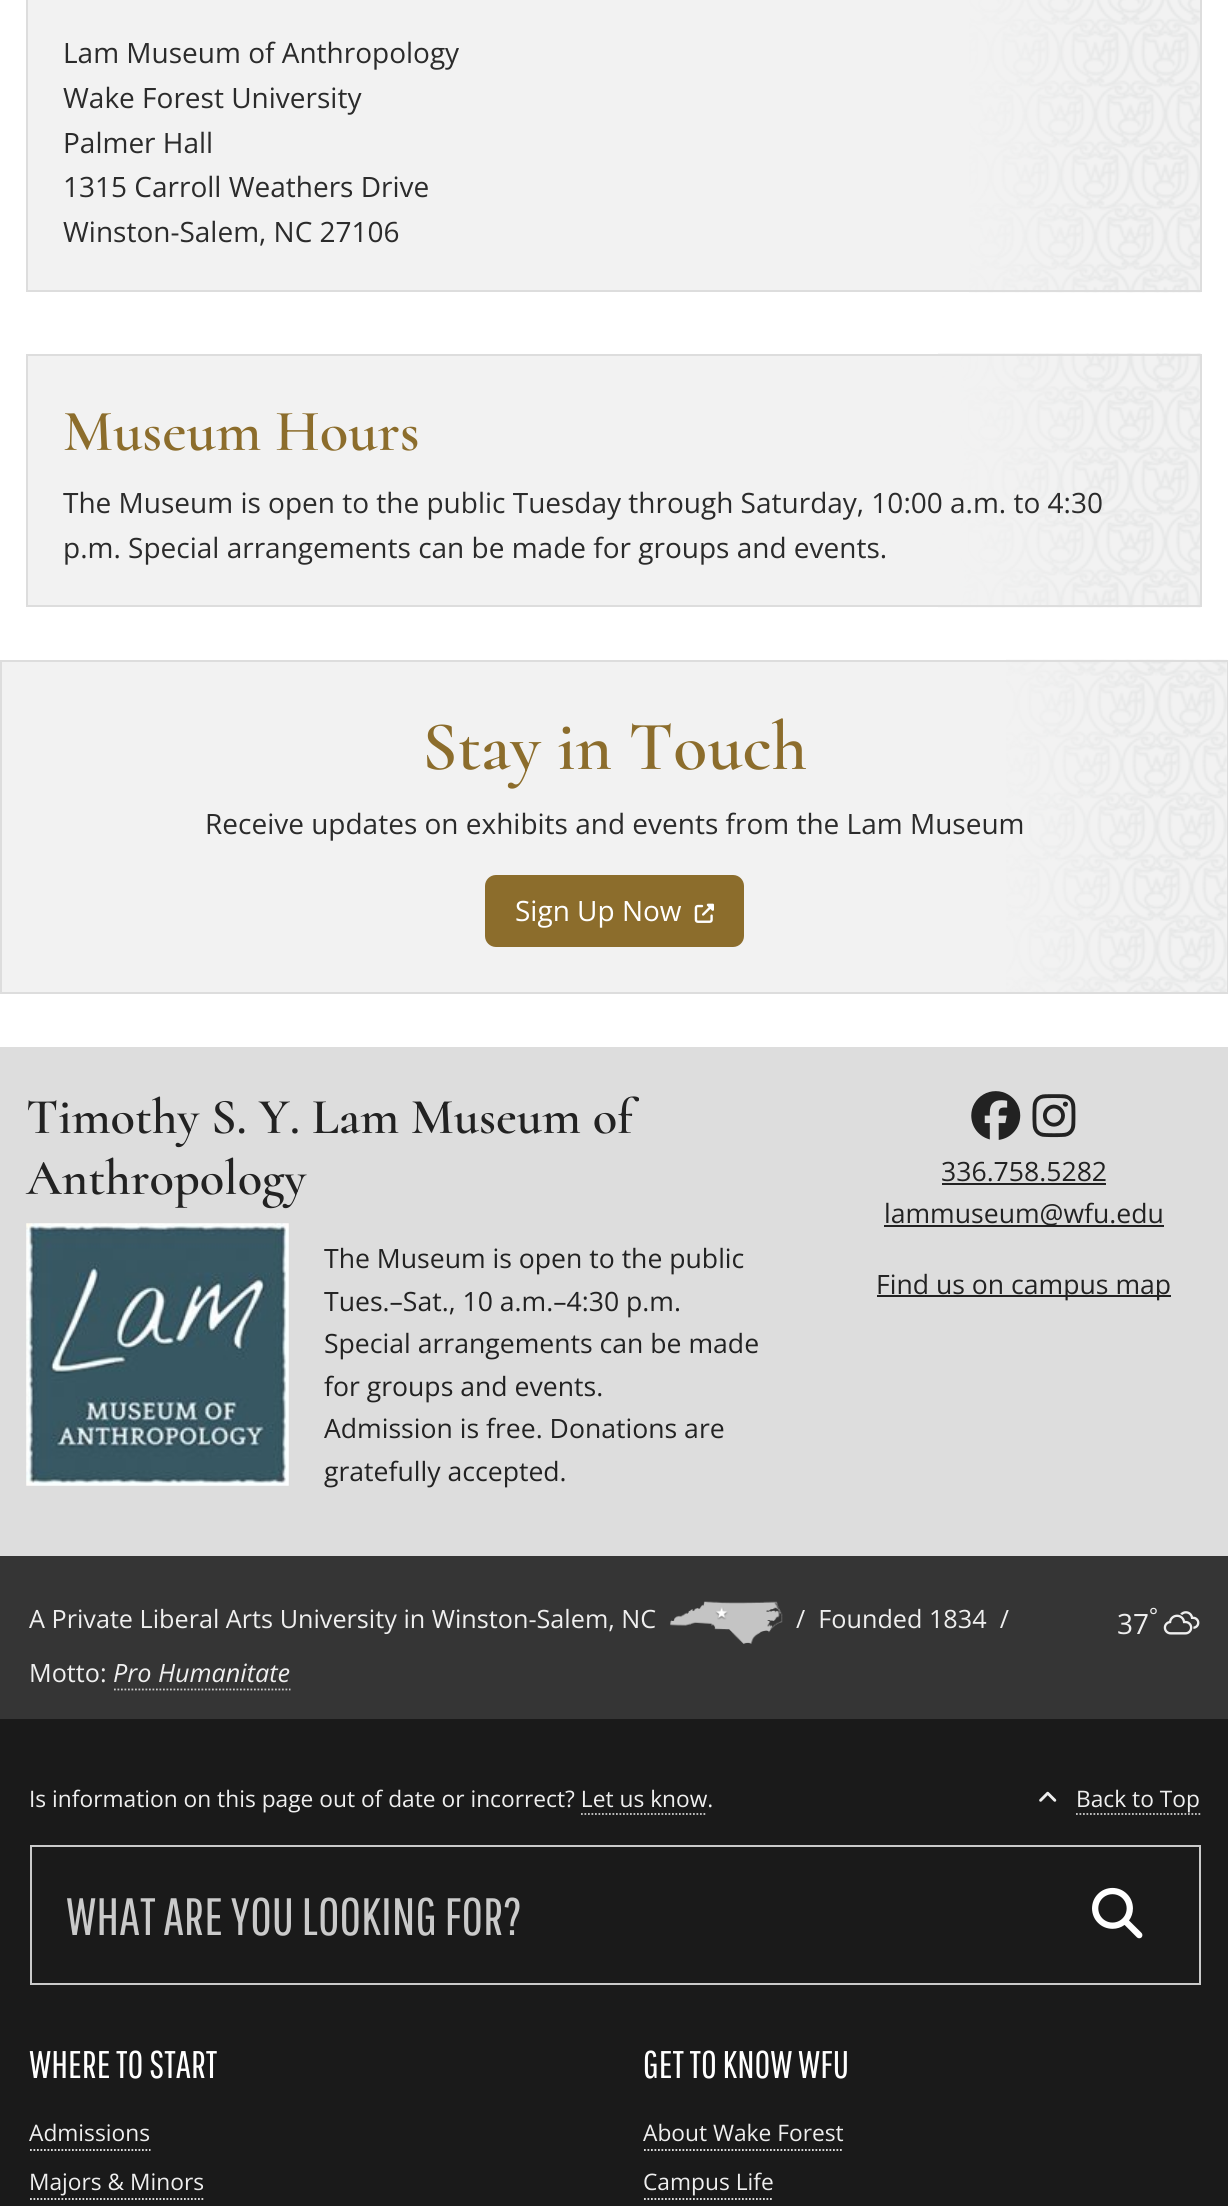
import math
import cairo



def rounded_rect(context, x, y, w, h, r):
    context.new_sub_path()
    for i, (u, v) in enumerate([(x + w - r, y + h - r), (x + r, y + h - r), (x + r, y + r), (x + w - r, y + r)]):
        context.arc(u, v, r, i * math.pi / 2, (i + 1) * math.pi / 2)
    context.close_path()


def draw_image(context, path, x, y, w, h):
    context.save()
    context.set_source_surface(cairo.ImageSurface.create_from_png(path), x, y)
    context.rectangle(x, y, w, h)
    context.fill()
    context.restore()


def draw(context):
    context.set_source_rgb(1, 1, 1)
    context.paint()
    context.set_source_rgb(242 / 255, 242 / 255, 242 / 255)
    context.rectangle(28, 0, 941, 290)
    context.fill()
    draw_image(context, "images/1.png", 969, 0, 232, 293)
    context.rectangle(27, -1, 1174, 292)
    context.set_source_rgb(221 / 255, 221 / 255, 221 / 255)
    context.stroke()
    context.set_source_rgb(242 / 255, 242 / 255, 242 / 255)
    context.rectangle(28, 356, 910, 249)
    context.fill()
    draw_image(context, "images/2.png", 938, 353, 263, 255)
    context.rectangle(27, 355, 1174, 251)
    context.set_source_rgb(221 / 255, 221 / 255, 221 / 255)
    context.stroke()
    context.set_source_rgb(242 / 255, 242 / 255, 242 / 255)
    context.rectangle(2, 662, 1225, 330)
    context.fill()
    draw_image(context, "images/3.png", 1006, 659, 221, 333)
    context.rectangle(1, 661, 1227, 332)
    context.set_source_rgb(221 / 255, 221 / 255, 221 / 255)
    context.stroke()
    context.set_source_rgb(140 / 255, 109 / 255, 44 / 255)
    rounded_rect(context, 486, 876, 257, 70, 10)
    context.fill_preserve()
    context.stroke()
    draw_image(context, "images/4.png", 694, 903, 20, 20)
    context.set_source_rgb(221 / 255, 221 / 255, 221 / 255)
    context.rectangle(0, 1047, 1228, 509)
    context.fill()
    draw_image(context, "images/5.png", 26, 1223, 263, 263)
    draw_image(context, "images/6.png", 971, 1091, 50, 49)
    draw_image(context, "images/7.png", 1032, 1094, 44, 44)
    context.set_source_rgb(34 / 255, 34 / 255, 34 / 255)
    context.rectangle(942, 1183, 164, 2)
    context.fill()
    context.rectangle(884, 1225, 280, 2)
    context.fill()
    context.rectangle(877, 1295, 294, 2)
    context.fill()
    context.set_source_rgb(53 / 255, 53 / 255, 53 / 255)
    context.rectangle(0, 1556, 1228, 163)
    context.fill()
    draw_image(context, "images/8.png", 670, 1601, 113, 43)
    context.new_path()
    context.move_to(114, 1689.5)
    context.line_to(290.5, 1689.5)
    context.set_source_rgb(204 / 255, 204 / 255, 204 / 255)
    context.set_line_width(1.8)
    context.set_dash([1.75, 1.75])
    context.stroke()
    draw_image(context, "images/9.png", 1163, 1611, 37, 24)
    context.set_source_rgb(26 / 255, 26 / 255, 26 / 255)
    context.rectangle(0, 1719, 1228, 487)
    context.fill()
    draw_image(context, "images/10.png", 1039, 1791, 18, 11)
    context.new_path()
    context.move_to(1076, 1814)
    context.line_to(1200.5, 1814)
    context.set_source_rgb(204 / 255, 204 / 255, 204 / 255)
    context.stroke()
    context.new_path()
    context.move_to(581, 1814)
    context.line_to(707, 1814)
    context.stroke()
    context.rectangle(31, 1846, 1169, 138)
    context.set_source_rgb(202 / 255, 202 / 255, 202 / 255)
    context.set_line_width(2)
    context.set_dash([])
    context.stroke()
    draw_image(context, "images/11.png", 1092, 1887, 51, 52)
    context.new_path()
    context.move_to(30, 2150)
    context.line_to(150.5, 2150)
    context.set_source_rgb(239 / 255, 239 / 255, 239 / 255)
    context.set_line_width(1.8)
    context.set_dash([1.75, 1.75])
    context.stroke()
    context.new_path()
    context.move_to(30, 2199)
    context.line_to(205, 2199)
    context.stroke()
    context.new_path()
    context.move_to(644, 2150)
    context.line_to(843.5, 2150)
    context.stroke()
    context.new_path()
    context.move_to(644, 2199)
    context.line_to(773.5, 2199)
    context.stroke()
    context.select_font_face("Open Sans")
    context.set_font_size(28)
    context.set_source_rgb(43 / 255, 43 / 255, 43 / 255)
    context.move_to(63, 63)
    context.show_text("Lam Museum of Anthropology")
    context.move_to(63, 108)
    context.show_text("Wake Forest University")
    context.move_to(63, 153)
    context.show_text("Palmer Hall")
    context.move_to(63, 197)
    context.show_text("1315 Carroll Weathers Drive")
    context.move_to(63, 242)
    context.show_text("Winston-Salem, NC 27106")
    context.select_font_face("Cormorant SemiBold")
    context.set_font_size(58.75)
    context.set_source_rgb(140 / 255, 109 / 255, 44 / 255)
    context.move_to(63, 450)
    context.show_text("Museum Hours")
    context.select_font_face("Open Sans")
    context.set_font_size(28)
    context.set_source_rgb(43 / 255, 43 / 255, 43 / 255)
    context.move_to(63, 513)
    context.show_text("The Museum is open to the public Tuesday through Saturday, 10:00 a.m. to 4:30")
    context.move_to(63, 558)
    context.show_text("p.m. Special arrangements can be made for groups and events.")
    context.select_font_face("Cormorant SemiBold")
    context.set_font_size(70)
    context.set_source_rgb(140 / 255, 109 / 255, 44 / 255)
    context.move_to(422, 769)
    context.show_text("Stay in Touch")
    context.select_font_face("Open Sans")
    context.set_font_size(28)
    context.set_source_rgb(43 / 255, 43 / 255, 43 / 255)
    context.move_to(205, 834)
    context.show_text("Receive updates on exhibits and events from the Lam Museum")
    context.set_source_rgb(1, 1, 1)
    context.move_to(515, 921)
    context.show_text("Sign Up Now")
    context.select_font_face("Cormorant SemiBold")
    context.set_font_size(50.4)
    context.set_source_rgb(34 / 255, 34 / 255, 34 / 255)
    context.move_to(26, 1133)
    context.show_text("Timothy S. Y. Lam Museum of")
    context.move_to(26, 1194)
    context.show_text("Anthropology")
    context.select_font_face("Open Sans")
    context.set_font_size(26.6)
    context.move_to(324, 1268)
    context.show_text("The Museum is open to the public")
    context.move_to(324, 1311)
    context.show_text("Tues.–Sat., 10 a.m.–4:30 p.m.")
    context.move_to(324, 1353)
    context.show_text("Special arrangements can be made")
    context.move_to(324, 1396)
    context.show_text("for groups and events.")
    context.move_to(324, 1438)
    context.show_text("Admission is free. Donations are")
    context.move_to(324, 1481)
    context.show_text("gratefully accepted.")
    context.move_to(941, 1181)
    context.show_text("336.758.5282")
    context.move_to(884, 1223)
    context.show_text("lammuseum@wfu.edu")
    context.move_to(876, 1294)
    context.show_text("Find us on campus map")
    context.set_font_size(25.2)
    context.set_source_rgb(239 / 255, 239 / 255, 239 / 255)
    context.move_to(29, 1628)
    context.show_text("A Private Liberal Arts University in Winston-Salem, NC")
    context.move_to(796, 1628)
    context.show_text("/  Founded 1834  /")
    context.move_to(29, 1682)
    context.show_text("Motto:")
    context.select_font_face("Open Sans", cairo.FontSlant.ITALIC)
    context.move_to(113, 1682)
    context.show_text("Pro Humanitate")
    context.select_font_face("Open Sans")
    context.set_font_size(28)
    context.move_to(1117, 1634)
    context.show_text("37")
    context.set_font_size(21)
    context.move_to(1149, 1623)
    context.show_text("°")
    context.set_font_size(22.75)
    context.move_to(29, 1807)
    context.show_text("Is information on this page out of date or incorrect? Let us know.")
    context.move_to(1076, 1807)
    context.show_text("Back to Top")
    context.select_font_face("Pathway Gothic One")
    context.set_font_size(52.5)
    context.set_source_rgb(202 / 255, 202 / 255, 202 / 255)
    context.move_to(66, 1935)
    context.show_text("WHAT ARE YOU LOOKING FOR?")
    context.set_font_size(38.5)
    context.set_source_rgb(1, 1, 1)
    context.move_to(29, 2078)
    context.show_text("WHERE TO START")
    context.select_font_face("Open Sans")
    context.set_font_size(22.75)
    context.set_source_rgb(239 / 255, 239 / 255, 239 / 255)
    context.move_to(29, 2141)
    context.show_text("Admissions")
    context.move_to(29, 2190)
    context.show_text("Majors & Minors")
    context.select_font_face("Pathway Gothic One")
    context.set_font_size(38.5)
    context.set_source_rgb(1, 1, 1)
    context.move_to(643, 2078)
    context.show_text("GET TO KNOW WFU")
    context.select_font_face("Open Sans")
    context.set_font_size(22.75)
    context.set_source_rgb(239 / 255, 239 / 255, 239 / 255)
    context.move_to(643, 2141)
    context.show_text("About Wake Forest")
    context.move_to(643, 2190)
    context.show_text("Campus Life")


surface = cairo.ImageSurface(cairo.Format.RGB24, 1228, 2206)
context = cairo.Context(surface)
options = cairo.FontOptions()
options.set_hint_metrics(cairo.HintMetrics.OFF)
options.set_hint_style(cairo.HintStyle.NONE)
context.set_font_options(options)
context.set_miter_limit(4)
draw(context)
surface.write_to_png("out.png")
